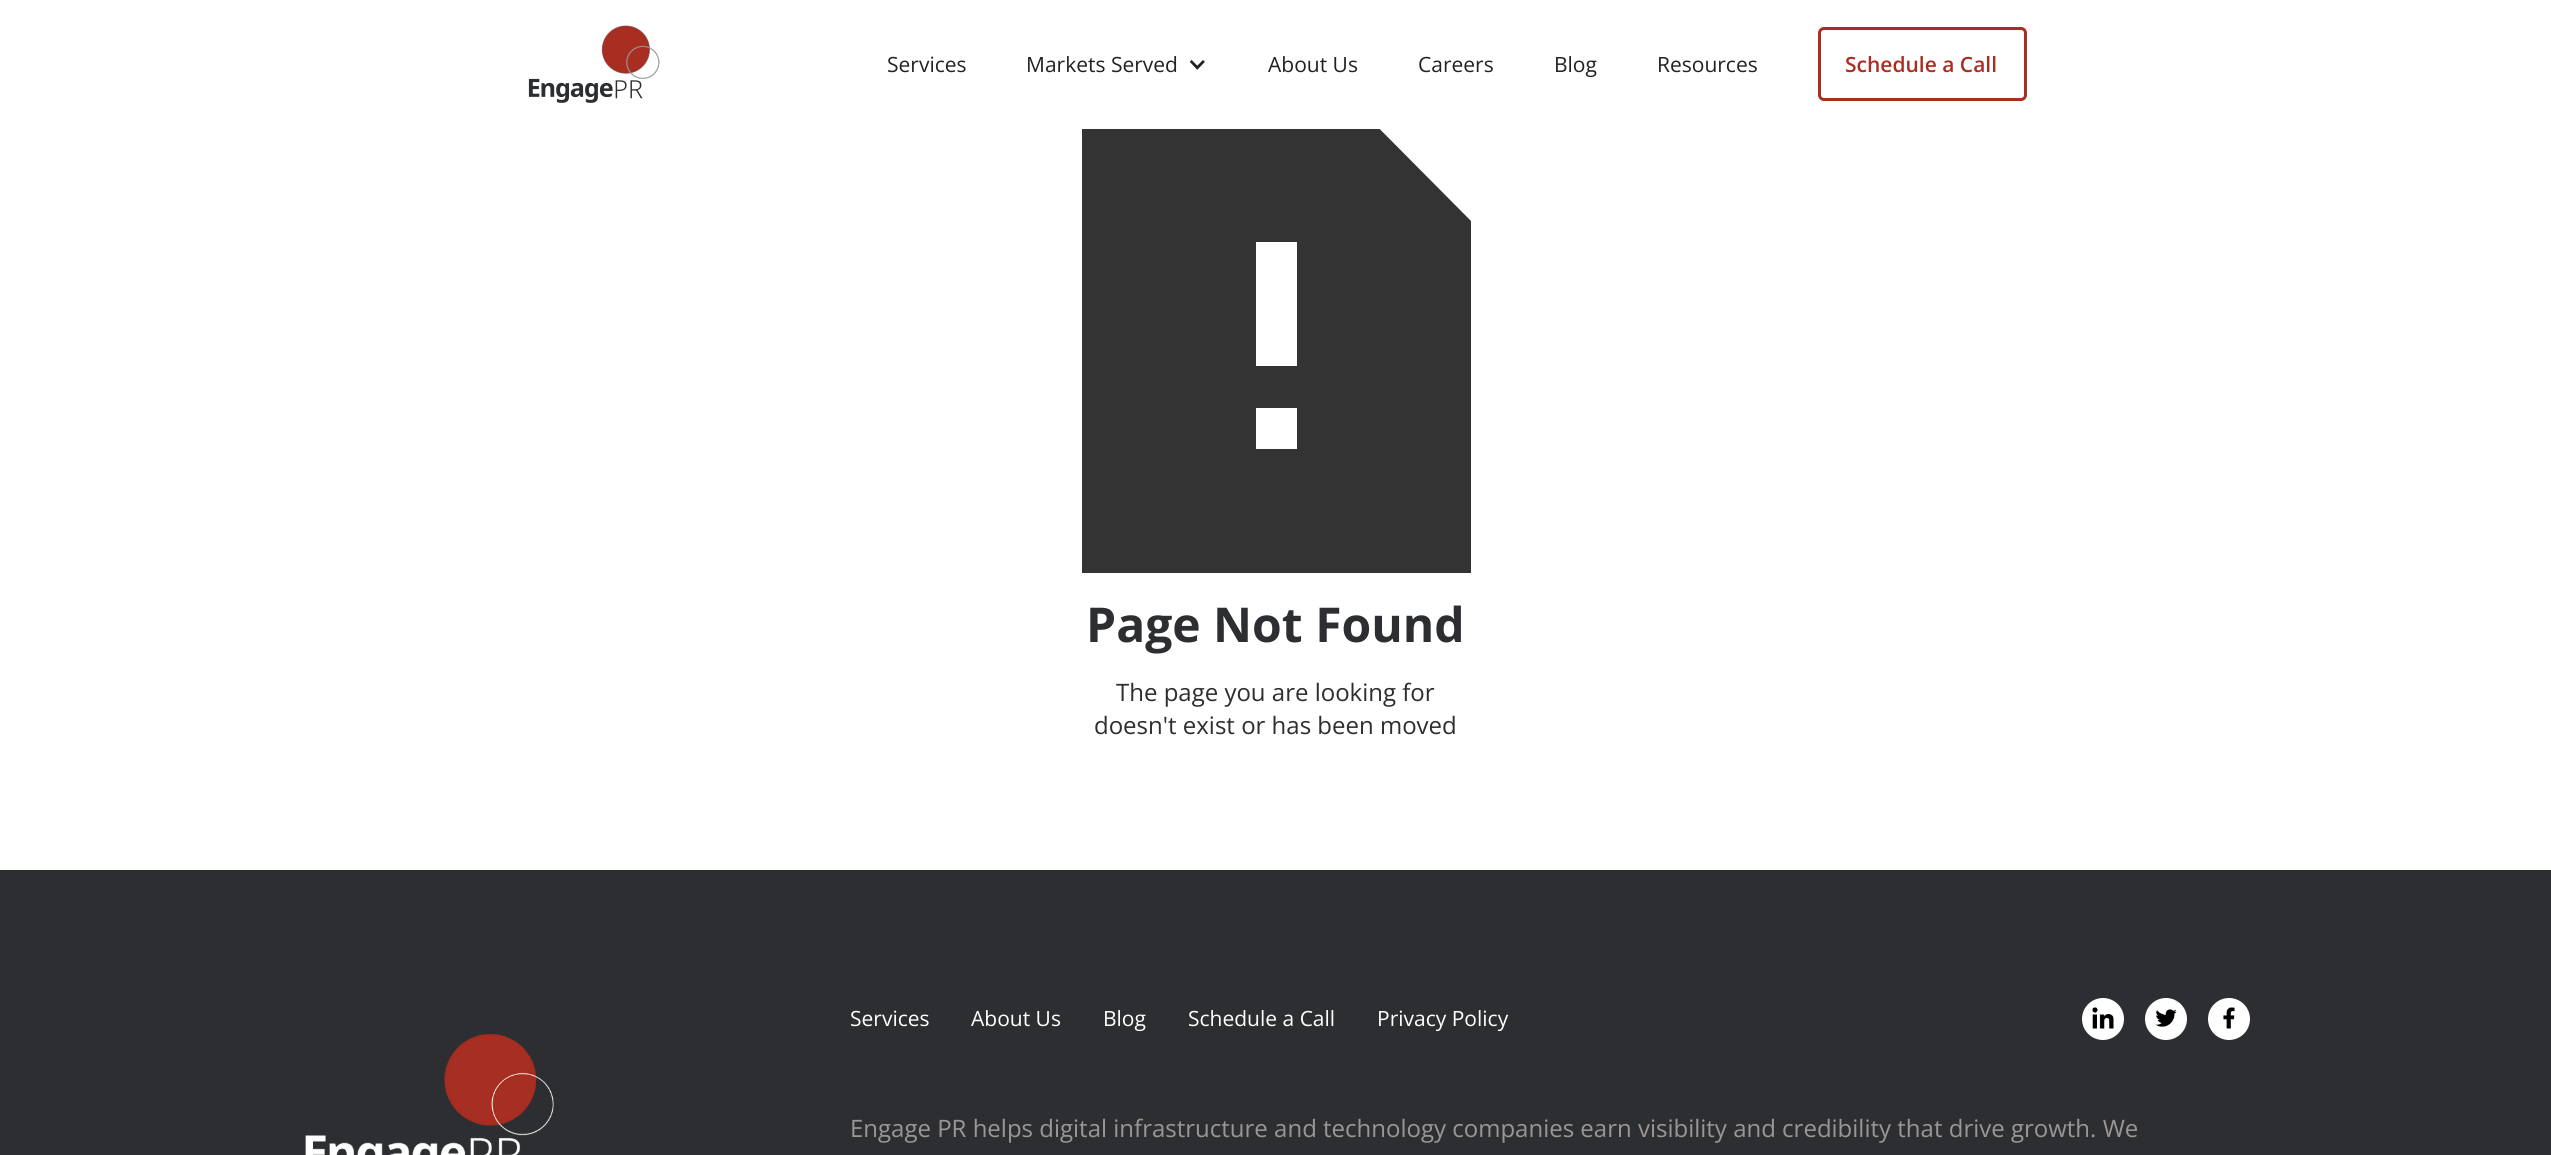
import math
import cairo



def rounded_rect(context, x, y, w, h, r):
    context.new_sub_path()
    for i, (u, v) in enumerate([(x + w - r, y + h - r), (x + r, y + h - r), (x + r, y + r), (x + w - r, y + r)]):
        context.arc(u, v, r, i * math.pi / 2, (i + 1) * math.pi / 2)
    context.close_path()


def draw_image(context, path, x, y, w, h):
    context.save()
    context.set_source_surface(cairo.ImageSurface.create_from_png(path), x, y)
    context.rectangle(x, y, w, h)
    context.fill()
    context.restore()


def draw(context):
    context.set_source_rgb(1, 1, 1)
    context.paint()
    context.save()
    context.rectangle(1082, 84, 390, 489)
    context.clip()
    context.set_source_rgb(51 / 255, 51 / 255, 51 / 255)
    context.set_fill_rule(cairo.FillRule.EVEN_ODD)
    context.new_path()
    context.move_to(1082, 84)
    context.line_to(1335, 84)
    context.line_to(1471, 221)
    context.line_to(1471, 574)
    context.line_to(1082, 574)
    context.close_path()
    context.move_to(1256, 242)
    context.line_to(1297, 242)
    context.line_to(1297, 366)
    context.line_to(1256, 366)
    context.close_path()
    context.move_to(1256, 408)
    context.line_to(1297, 408)
    context.line_to(1297, 449)
    context.line_to(1256, 449)
    context.close_path()
    context.fill()
    context.restore()
    context.set_source_rgb(1, 1, 1)
    context.rectangle(1082, 84, 298, 45)
    context.fill()
    draw_image(context, "images/1.png", 528, 25, 132, 78)
    draw_image(context, "images/2.png", 1189, 60, 16, 10)
    rounded_rect(context, 1819.5, 28.5, 206, 71, 4.5)
    context.set_source_rgb(168 / 255, 46 / 255, 34 / 255)
    context.set_line_width(3)
    context.stroke()
    context.set_source_rgb(45 / 255, 46 / 255, 49 / 255)
    context.rectangle(0, 870, 2551, 285)
    context.fill()
    draw_image(context, "images/3.png", 305, 1033, 249, 122)
    context.set_source_rgb(1, 1, 1)
    context.arc(2103, 1019, 21, 0, 2 * math.pi)
    context.fill()
    draw_image(context, "images/4.png", 2092, 1007, 22, 22)
    context.arc(2166, 1019, 21, 0, 2 * math.pi)
    context.fill()
    draw_image(context, "images/5.png", 2155, 1009, 22, 18)
    context.arc(2229, 1019, 21, 0, 2 * math.pi)
    context.fill()
    draw_image(context, "images/6.png", 2223, 1007, 12, 22)
    context.select_font_face("Open Sans")
    context.set_font_size(21)
    context.set_source_rgb(34 / 255, 34 / 255, 34 / 255)
    context.move_to(887, 72)
    context.show_text("Services")
    context.move_to(1026, 72)
    context.show_text("Markets Served")
    context.move_to(1268, 72)
    context.show_text("About Us")
    context.move_to(1418, 72)
    context.show_text("Careers")
    context.move_to(1554, 72)
    context.show_text("Blog")
    context.move_to(1657, 72)
    context.show_text("Resources")
    context.select_font_face("Open Sans SemiBold")
    context.set_source_rgb(168 / 255, 46 / 255, 34 / 255)
    context.move_to(1845, 72)
    context.show_text("Schedule a Call")
    context.select_font_face("Open Sans", cairo.FontSlant.NORMAL, cairo.FontWeight.BOLD)
    context.set_font_size(48)
    context.set_source_rgb(45 / 255, 46 / 255, 49 / 255)
    context.move_to(1086, 642)
    context.show_text("Page Not Found")
    context.select_font_face("Open Sans")
    context.set_font_size(24)
    context.move_to(1116, 701)
    context.show_text("The page you are looking for")
    context.move_to(1094, 734)
    context.show_text("doesn't exist or has been moved")
    context.set_font_size(21)
    context.set_source_rgb(1, 1, 1)
    context.move_to(850, 1026)
    context.show_text("Services")
    context.move_to(971, 1026)
    context.show_text("About Us")
    context.move_to(1103, 1026)
    context.show_text("Blog")
    context.move_to(1188, 1026)
    context.show_text("Schedule a Call")
    context.move_to(1377, 1026)
    context.show_text("Privacy Policy")
    context.set_font_size(24)
    context.set_source_rgb(154 / 255, 150 / 255, 150 / 255)
    context.move_to(850, 1137)
    context.show_text("Engage PR helps digital infrastructure and technology companies earn visibility and credibility that drive growth. We")


surface = cairo.ImageSurface(cairo.Format.RGB24, 2551, 1155)
context = cairo.Context(surface)
options = cairo.FontOptions()
options.set_hint_metrics(cairo.HintMetrics.OFF)
options.set_hint_style(cairo.HintStyle.NONE)
context.set_font_options(options)
context.set_miter_limit(4)
draw(context)
surface.write_to_png("out.png")
